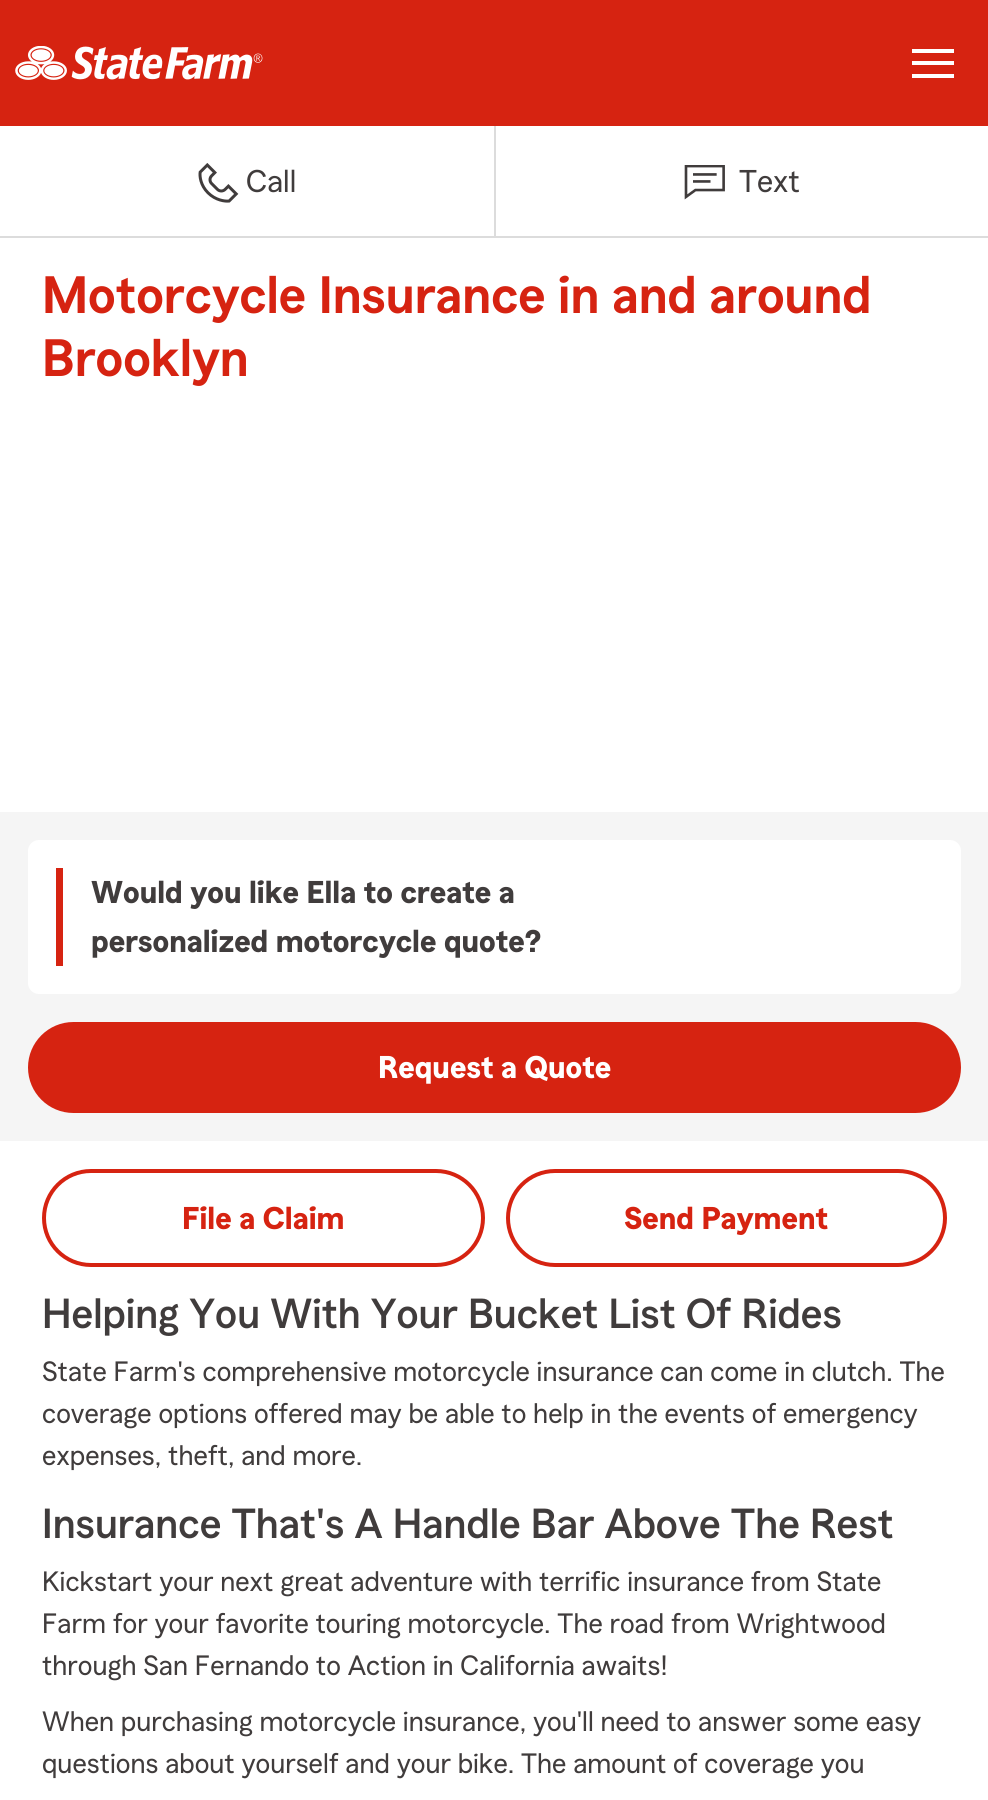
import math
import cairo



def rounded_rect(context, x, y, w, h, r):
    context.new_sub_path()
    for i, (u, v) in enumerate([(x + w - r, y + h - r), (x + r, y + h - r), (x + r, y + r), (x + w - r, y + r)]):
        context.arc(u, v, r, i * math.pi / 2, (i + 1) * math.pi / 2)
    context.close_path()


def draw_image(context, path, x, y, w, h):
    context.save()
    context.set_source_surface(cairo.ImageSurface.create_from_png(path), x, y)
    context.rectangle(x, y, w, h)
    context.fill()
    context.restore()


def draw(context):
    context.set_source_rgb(1, 1, 1)
    context.paint()
    context.set_source_rgb(214 / 255, 35 / 255, 17 / 255)
    context.rectangle(0, 0, 988, 126)
    context.fill()
    draw_image(context, "images/1.png", 15, 46, 248, 34)
    context.set_source_rgb(1, 1, 1)
    context.rectangle(912, 49, 42, 4)
    context.fill()
    context.rectangle(912, 61, 42, 4)
    context.fill()
    context.rectangle(912, 74, 42, 4)
    context.fill()
    context.set_source_rgb(220 / 255, 220 / 255, 220 / 255)
    context.rectangle(0, 236, 988, 2)
    context.fill()
    draw_image(context, "images/2.png", 198, 163, 41, 40)
    context.rectangle(494, 126, 2, 110)
    context.fill()
    draw_image(context, "images/3.png", 684, 165, 41, 35)
    context.set_source_rgb(245 / 255, 245 / 255, 245 / 255)
    context.rectangle(0, 812, 988, 329)
    context.fill()
    context.set_source_rgb(1, 1, 1)
    rounded_rect(context, 28, 840, 933, 154, 11)
    context.fill()
    context.set_source_rgb(214 / 255, 35 / 255, 17 / 255)
    context.rectangle(56, 868, 7, 98)
    context.fill()
    rounded_rect(context, 28, 1022, 933, 91, 45.5)
    context.fill()
    rounded_rect(context, 44, 1171, 439, 94, 47)
    context.set_line_width(4)
    context.stroke()
    rounded_rect(context, 508, 1171, 437, 94, 47)
    context.stroke()
    context.select_font_face("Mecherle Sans")
    context.set_font_size(31.5)
    context.set_source_rgb(64 / 255, 60 / 255, 60 / 255)
    context.move_to(246, 192)
    context.show_text("Call")
    context.move_to(739, 192)
    context.show_text("Text")
    context.select_font_face("Mecherle Sans SemiBold")
    context.set_font_size(52.5)
    context.set_source_rgb(214 / 255, 35 / 255, 17 / 255)
    context.move_to(42, 313)
    context.show_text("Motorcycle Insurance in and around")
    context.move_to(42, 376)
    context.show_text("Brooklyn")
    context.select_font_face("Mecherle Sans", cairo.FontSlant.NORMAL, cairo.FontWeight.BOLD)
    context.set_font_size(31.5)
    context.set_source_rgb(64 / 255, 60 / 255, 60 / 255)
    context.move_to(91, 903)
    context.show_text("Would you like Ella to create a")
    context.move_to(91, 952)
    context.show_text("personalized motorcycle quote?")
    context.set_source_rgb(1, 1, 1)
    context.move_to(378, 1078)
    context.show_text("Request a Quote")
    context.set_source_rgb(214 / 255, 35 / 255, 17 / 255)
    context.move_to(182, 1229)
    context.show_text("File a Claim")
    context.move_to(624, 1229)
    context.show_text("Send Payment")
    context.select_font_face("Mecherle Sans Medium")
    context.set_font_size(42)
    context.set_source_rgb(64 / 255, 60 / 255, 60 / 255)
    context.move_to(42, 1328)
    context.show_text("Helping You With Your Bucket List Of Rides")
    context.select_font_face("Mecherle Sans")
    context.set_font_size(28)
    context.move_to(42, 1381)
    context.show_text("State Farm's comprehensive motorcycle insurance can come in clutch. The")
    context.move_to(42, 1423)
    context.show_text("coverage options offered may be able to help in the events of emergency")
    context.move_to(42, 1465)
    context.show_text("expenses, theft, and more.")
    context.select_font_face("Mecherle Sans Medium")
    context.set_font_size(42)
    context.move_to(42, 1538)
    context.show_text("Insurance That's A Handle Bar Above The Rest")
    context.select_font_face("Mecherle Sans")
    context.set_font_size(28)
    context.move_to(42, 1591)
    context.show_text("Kickstart your next great adventure with terrific insurance from State")
    context.move_to(42, 1633)
    context.show_text("Farm for your favorite touring motorcycle. The road from Wrightwood")
    context.move_to(42, 1675)
    context.show_text("through San Fernando to Action in California awaits!")
    context.move_to(42, 1731)
    context.show_text("When purchasing motorcycle insurance, you'll need to answer some easy")
    context.move_to(42, 1773)
    context.show_text("questions about yourself and your bike. The amount of coverage you")


surface = cairo.ImageSurface(cairo.Format.RGB24, 988, 1800)
context = cairo.Context(surface)
options = cairo.FontOptions()
options.set_hint_metrics(cairo.HintMetrics.OFF)
options.set_hint_style(cairo.HintStyle.NONE)
context.set_font_options(options)
context.set_miter_limit(4)
draw(context)
surface.write_to_png("out.png")
